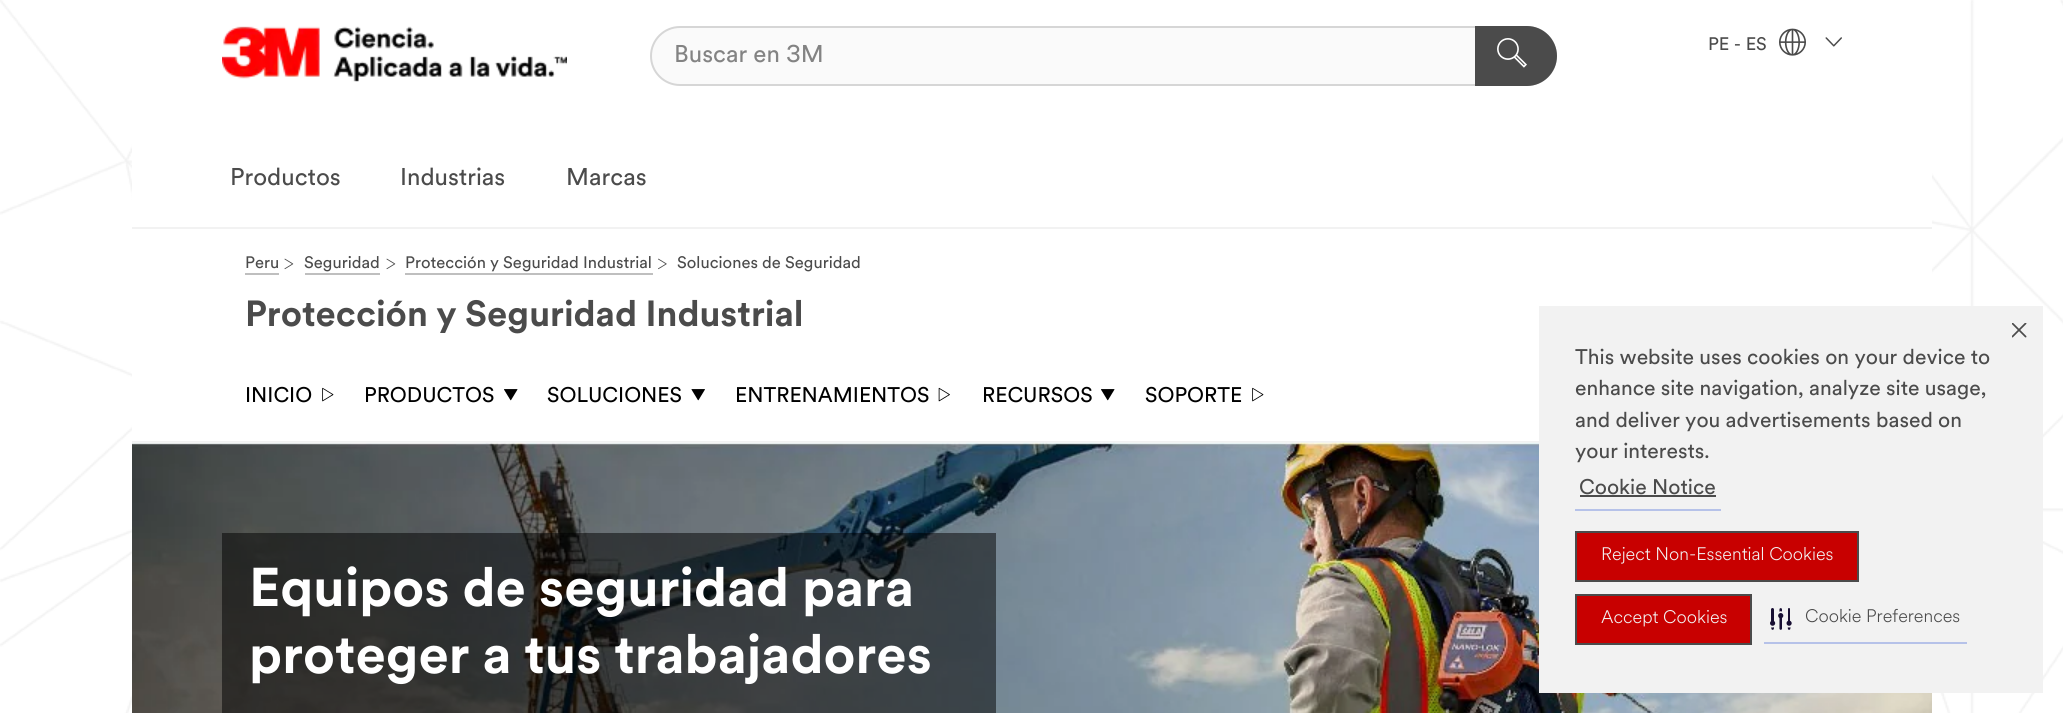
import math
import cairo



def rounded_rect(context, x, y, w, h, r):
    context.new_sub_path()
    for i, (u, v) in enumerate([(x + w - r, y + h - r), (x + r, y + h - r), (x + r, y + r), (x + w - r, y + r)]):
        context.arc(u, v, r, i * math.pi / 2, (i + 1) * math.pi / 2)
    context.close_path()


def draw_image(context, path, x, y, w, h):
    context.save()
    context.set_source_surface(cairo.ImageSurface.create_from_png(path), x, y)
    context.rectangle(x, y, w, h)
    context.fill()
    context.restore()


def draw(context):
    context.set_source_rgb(1, 1, 1)
    context.paint()
    draw_image(context, "images/1.png", 0, 0, 2063, 713)
    context.set_source_rgb(1, 1, 1)
    context.rectangle(132, 0, 1800, 441)
    context.fill()
    context.set_source_rgb(242 / 255, 242 / 255, 242 / 255)
    context.rectangle(132, 227, 1800, 2)
    context.fill()
    draw_image(context, "images/2.png", 1779, 28, 27, 28)
    draw_image(context, "images/3.png", 1825, 37, 17, 10)
    draw_image(context, "images/4.png", 222, 26, 345, 56)
    context.set_source_rgb(250 / 255, 250 / 255, 250 / 255)
    rounded_rect(context, 651, 27, 905, 58, 29)
    context.fill_preserve()
    context.set_source_rgb(214 / 255, 214 / 255, 214 / 255)
    context.stroke()
    context.set_source_rgb(75 / 255, 75 / 255, 75 / 255)
    context.new_path()
    context.move_to(1475, 26)
    context.line_to(1527, 26)
    context.curve_to(1543.5, 26, 1557, 39.5, 1557, 56)
    context.curve_to(1557, 72.5, 1543.5, 86, 1527, 86)
    context.line_to(1475, 86)
    context.close_path()
    context.fill()
    draw_image(context, "images/5.png", 1497, 38, 30, 30)
    context.set_source_rgb(242 / 255, 242 / 255, 242 / 255)
    context.rectangle(132, 441, 1407, 2)
    context.fill()
    context.set_source_rgb(191 / 255, 191 / 255, 191 / 255)
    context.rectangle(245, 273, 34, 2)
    context.fill()
    draw_image(context, "images/6.png", 284, 258, 10, 12)
    context.rectangle(305, 273, 75, 2)
    context.fill()
    draw_image(context, "images/6.png", 386, 258, 10, 12)
    context.rectangle(405, 273, 248, 2)
    context.fill()
    draw_image(context, "images/7.png", 658, 258, 9, 12)
    draw_image(context, "images/8.png", 322, 387, 12, 15)
    draw_image(context, "images/9.png", 504, 389, 14, 12)
    draw_image(context, "images/10.png", 691, 389, 14, 12)
    draw_image(context, "images/11.png", 938, 387, 12, 15)
    draw_image(context, "images/9.png", 1101, 389, 14, 12)
    draw_image(context, "images/8.png", 1252, 387, 12, 15)
    draw_image(context, "images/12.png", 132, 442, 1800, 271)
    context.set_source_rgba(0, 0, 0, 0.5)
    context.rectangle(222, 533, 774, 180)
    context.fill()
    context.set_source_rgb(242 / 255, 242 / 255, 242 / 255)
    context.rectangle(1539, 306, 504, 387)
    context.fill()
    context.set_source_rgb(182 / 255, 194 / 255, 233 / 255)
    context.rectangle(1575, 509, 146, 2)
    context.fill()
    context.set_source_rgb(75 / 255, 75 / 255, 75 / 255)
    context.rectangle(1580, 495, 136, 2)
    context.fill()
    draw_image(context, "images/13.png", 2012, 323, 15, 15)
    context.set_source_rgb(200 / 255, 0, 0)
    context.rectangle(1576, 532, 282, 49)
    context.fill_preserve()
    context.set_source_rgb(75 / 255, 75 / 255, 75 / 255)
    context.stroke()
    context.set_source_rgb(200 / 255, 0, 0)
    context.rectangle(1576, 595, 175, 49)
    context.fill_preserve()
    context.set_source_rgb(75 / 255, 75 / 255, 75 / 255)
    context.stroke()
    context.set_source_rgb(182 / 255, 194 / 255, 233 / 255)
    context.rectangle(1764, 642, 203, 2)
    context.fill()
    draw_image(context, "images/14.png", 1770, 608, 22, 22)
    context.select_font_face("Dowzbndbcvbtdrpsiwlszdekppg")
    context.set_font_size(18)
    context.set_source_rgb(75 / 255, 75 / 255, 75 / 255)
    context.move_to(1708, 50)
    context.show_text("PE - ES")
    context.set_font_size(24)
    context.move_to(230, 185)
    context.show_text("Productos")
    context.move_to(400, 185)
    context.show_text("Industrias")
    context.move_to(566, 185)
    context.show_text("Marcas")
    context.set_source_rgb(131 / 255, 131 / 255, 131 / 255)
    context.move_to(674, 62)
    context.show_text("Buscar en 3M")
    context.set_font_size(16.5)
    context.set_source_rgb(75 / 255, 75 / 255, 75 / 255)
    context.move_to(245, 268)
    context.show_text("Peru")
    context.move_to(304, 268)
    context.show_text("Seguridad")
    context.move_to(405, 268)
    context.show_text("Protección y Seguridad Industrial")
    context.move_to(677, 268)
    context.show_text("Soluciones de Seguridad")
    context.select_font_face("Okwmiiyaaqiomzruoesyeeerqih", cairo.FontSlant.NORMAL, cairo.FontWeight.BOLD)
    context.set_font_size(36)
    context.move_to(245, 326)
    context.show_text("Protección y Seguridad Industrial")
    context.select_font_face("Dowzbndbcvbtdrpsiwlszdekppg")
    context.set_font_size(21)
    context.set_source_rgb(0, 0, 0)
    context.move_to(245, 402)
    context.show_text("INICIO")
    context.move_to(364, 402)
    context.show_text("PRODUCTOS")
    context.move_to(547, 402)
    context.show_text("SOLUCIONES")
    context.move_to(735, 402)
    context.show_text("ENTRENAMIENTOS")
    context.move_to(982, 402)
    context.show_text("RECURSOS")
    context.move_to(1145, 402)
    context.show_text("SOPORTE")
    context.select_font_face("Okwmiiyaaqiomzruoesyeeerqih", cairo.FontSlant.NORMAL, cairo.FontWeight.BOLD)
    context.set_font_size(54)
    context.set_source_rgb(1, 1, 1)
    context.move_to(249, 606)
    context.show_text("Equipos de seguridad para")
    context.move_to(249, 673)
    context.show_text("proteger a tus trabajadores")
    context.select_font_face("Dowzbndbcvbtdrpsiwlszdekppg")
    context.set_font_size(21)
    context.set_source_rgb(75 / 255, 75 / 255, 75 / 255)
    context.move_to(1575, 364)
    context.show_text("This website uses cookies on your device to")
    context.move_to(1575, 395)
    context.show_text("enhance site navigation, analyze site usage,")
    context.move_to(1575, 427)
    context.show_text("and deliver you advertisements based on")
    context.move_to(1575, 458)
    context.show_text("your interests.")
    context.move_to(1579, 494)
    context.show_text("Cookie Notice")
    context.select_font_face("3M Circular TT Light")
    context.set_font_size(18)
    context.set_source_rgb(242 / 255, 242 / 255, 242 / 255)
    context.move_to(1601, 560)
    context.show_text("Reject Non-Essential Cookies")
    context.move_to(1601, 623)
    context.show_text("Accept Cookies")
    context.set_source_rgb(75 / 255, 75 / 255, 75 / 255)
    context.move_to(1805, 622)
    context.show_text("Cookie Preferences")


surface = cairo.ImageSurface(cairo.Format.RGB24, 2063, 713)
context = cairo.Context(surface)
options = cairo.FontOptions()
options.set_hint_metrics(cairo.HintMetrics.OFF)
options.set_hint_style(cairo.HintStyle.NONE)
context.set_font_options(options)
context.set_miter_limit(4)
draw(context)
surface.write_to_png("out.png")
